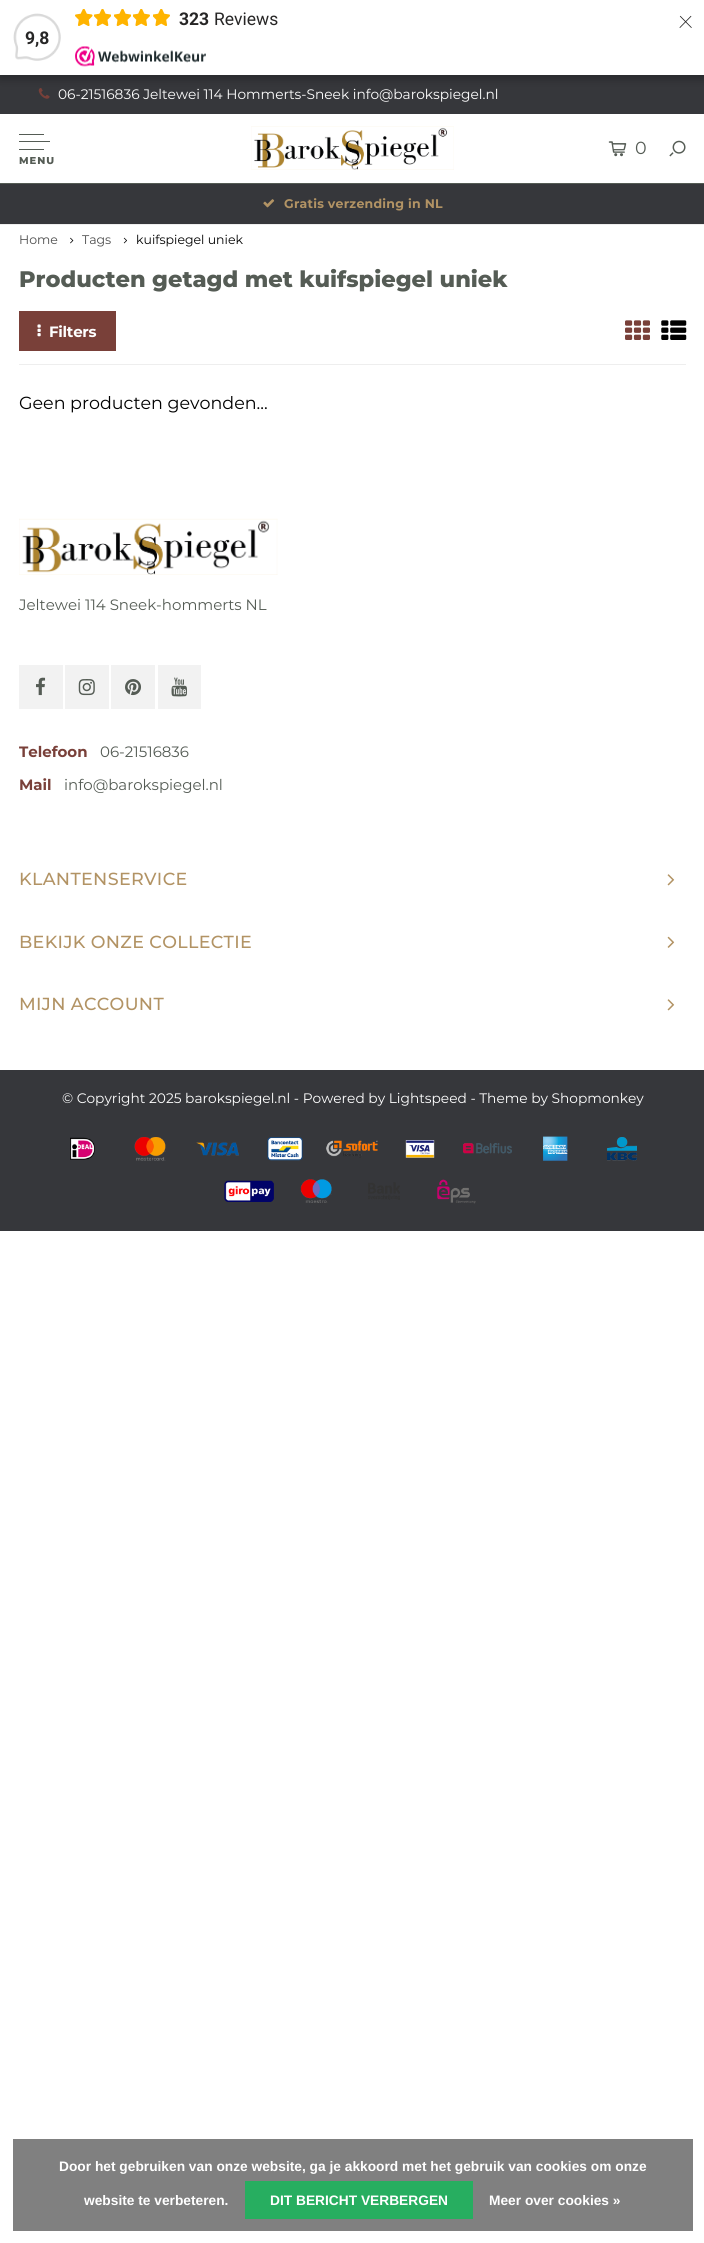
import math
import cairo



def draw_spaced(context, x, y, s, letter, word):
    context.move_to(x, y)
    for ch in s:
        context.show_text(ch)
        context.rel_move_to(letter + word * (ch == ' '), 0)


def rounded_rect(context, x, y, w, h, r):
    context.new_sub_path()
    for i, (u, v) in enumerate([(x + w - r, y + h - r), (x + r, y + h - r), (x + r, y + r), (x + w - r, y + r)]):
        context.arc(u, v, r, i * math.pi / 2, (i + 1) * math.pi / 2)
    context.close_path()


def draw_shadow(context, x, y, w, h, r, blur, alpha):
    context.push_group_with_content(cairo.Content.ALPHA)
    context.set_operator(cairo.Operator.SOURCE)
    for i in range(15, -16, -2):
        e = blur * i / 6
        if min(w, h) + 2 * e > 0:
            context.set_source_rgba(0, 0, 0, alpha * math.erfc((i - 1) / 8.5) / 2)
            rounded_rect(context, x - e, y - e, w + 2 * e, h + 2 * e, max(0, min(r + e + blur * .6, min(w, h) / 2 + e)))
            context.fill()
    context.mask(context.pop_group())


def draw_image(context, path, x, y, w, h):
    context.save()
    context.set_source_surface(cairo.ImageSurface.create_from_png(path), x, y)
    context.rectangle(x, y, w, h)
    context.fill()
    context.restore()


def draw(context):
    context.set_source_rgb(1, 1, 1)
    context.paint()
    context.set_source_rgb(54 / 255, 55 / 255, 59 / 255)
    context.rectangle(0, 75, 704, 39)
    context.fill()
    draw_image(context, "images/6.png", 38, 88, 12, 11)
    context.set_source_rgb(0, 0, 0)
    draw_shadow(context, -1, -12, 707, 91, 0, 4, 0.15)
    draw_shadow(context, 0, 3, 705, 75, 0, 6, 0.15)
    context.set_source_rgb(1, 1, 1)
    context.rectangle(0, 0, 704, 75)
    context.fill()
    draw_image(context, "images/1.png", 75, 46, 131, 21)
    draw_image(context, "images/2.png", 75, 9, 18, 17)
    draw_image(context, "images/3.png", 94, 9, 17, 17)
    draw_image(context, "images/3.png", 114, 9, 17, 17)
    draw_image(context, "images/4.png", 133, 9, 17, 17)
    draw_image(context, "images/4.png", 153, 9, 17, 17)
    draw_image(context, "images/5.png", 13, 13, 48, 48)
    context.set_source_rgb(85 / 255, 92 / 255, 85 / 255)
    context.rectangle(0, 183, 704, 1)
    context.fill()
    draw_image(context, "images/7.png", 251, 126, 203, 44)
    draw_image(context, "images/8.png", 608, 141, 19, 16)
    draw_image(context, "images/9.png", 669, 140, 17, 17)
    context.rectangle(19, 134, 25, 1)
    context.fill()
    context.rectangle(19, 141, 31, 1)
    context.fill()
    context.rectangle(19, 149, 25, 1)
    context.fill()
    context.set_source_rgb(54 / 255, 55 / 255, 59 / 255)
    context.rectangle(0, 184, 704, 40)
    context.fill()
    context.set_source_rgb(238 / 255, 238 / 255, 238 / 255)
    context.rectangle(0, 224, 704, 1)
    context.fill()
    draw_image(context, "images/10.png", 263, 199, 12, 9)
    draw_image(context, "images/11.png", 70, 237, 4, 7)
    draw_image(context, "images/12.png", 123, 237, 4, 7)
    context.rectangle(19, 364, 667, 1)
    context.fill()
    context.set_source_rgb(121 / 255, 64 / 255, 57 / 255)
    context.rectangle(19, 311, 97, 40)
    context.fill()
    draw_image(context, "images/13.png", 37, 324, 4, 13)
    draw_image(context, "images/14.png", 625, 320, 25, 20)
    draw_image(context, "images/15.png", 661, 320, 26, 20)
    draw_image(context, "images/16.png", 19, 518, 259, 57)
    context.set_source_rgb(242 / 255, 242 / 255, 242 / 255)
    context.rectangle(19, 665, 44, 44)
    context.fill()
    draw_image(context, "images/17.png", 36, 677, 10, 19)
    context.rectangle(65, 665, 44, 44)
    context.fill()
    draw_image(context, "images/18.png", 78, 679, 17, 17)
    context.rectangle(111, 665, 44, 44)
    context.fill()
    draw_image(context, "images/19.png", 125, 679, 16, 17)
    context.rectangle(158, 665, 43, 44)
    context.fill()
    draw_image(context, "images/20.png", 171, 677, 16, 20)
    draw_image(context, "images/21.png", 667, 874, 8, 12)
    draw_image(context, "images/22.png", 667, 936, 8, 12)
    draw_image(context, "images/21.png", 667, 999, 8, 12)
    context.set_source_rgb(54 / 255, 55 / 255, 59 / 255)
    context.rectangle(0, 1070, 704, 161)
    context.fill()
    draw_image(context, "images/23.png", 70, 1137, 25, 23)
    draw_image(context, "images/24.png", 134, 1137, 32, 24)
    draw_image(context, "images/25.png", 196, 1142, 43, 14)
    draw_image(context, "images/26.png", 267, 1137, 36, 24)
    draw_image(context, "images/27.png", 326, 1140, 52, 18)
    draw_image(context, "images/28.png", 405, 1140, 30, 18)
    draw_image(context, "images/29.png", 463, 1143, 49, 11)
    draw_image(context, "images/30.png", 543, 1136, 25, 25)
    draw_image(context, "images/31.png", 607, 1137, 30, 24)
    draw_image(context, "images/32.png", 224, 1180, 50, 22)
    draw_image(context, "images/33.png", 300, 1179, 32, 24)
    draw_image(context, "images/34.png", 368, 1182, 32, 18)
    draw_image(context, "images/35.png", 437, 1179, 39, 25)
    context.set_source_rgb(128 / 255, 128 / 255, 128 / 255)
    context.rectangle(13, 2139, 680, 92)
    context.fill()
    context.set_source_rgb(39 / 255, 174 / 255, 96 / 255)
    context.rectangle(245, 2181, 228, 38)
    context.fill()
    context.select_font_face("Roboto", cairo.FontSlant.NORMAL, cairo.FontWeight.BOLD)
    context.set_font_size(17.5)
    context.set_source_rgb(39 / 255, 38 / 255, 38 / 255)
    context.move_to(179, 25)
    context.show_text("323")
    context.select_font_face("Roboto")
    context.move_to(214, 25)
    context.show_text("Reviews")
    context.select_font_face("Roboto Thin")
    context.set_font_size(30)
    context.move_to(678, 28)
    context.show_text("×")
    context.select_font_face("Roboto", cairo.FontSlant.NORMAL, cairo.FontWeight.BOLD)
    context.set_font_size(17.5)
    context.move_to(25, 44)
    context.show_text("9,8")
    context.select_font_face("Montserrat")
    context.set_font_size(13.75)
    context.set_source_rgb(1, 1, 1)
    context.move_to(58, 99)
    context.show_text("06-21516836 Jeltewei 114 Hommerts-Sneek info@barokspiegel.nl")
    context.set_font_size(17.5)
    context.set_source_rgb(85 / 255, 92 / 255, 85 / 255)
    context.move_to(635, 154)
    context.show_text("0")
    context.select_font_face("Montserrat ExtraBold")
    context.set_font_size(10)
    draw_spaced(context, 19, 164, "MENU", 1, 0)
    context.select_font_face("Montserrat", cairo.FontSlant.NORMAL, cairo.FontWeight.BOLD)
    context.set_font_size(12.5)
    context.set_source_rgb(178 / 255, 147 / 255, 100 / 255)
    draw_spaced(context, 284, 208, "Gratis verzending in NL", 0.25, 0)
    context.select_font_face("Montserrat")
    context.set_source_rgb(77 / 255, 77 / 255, 77 / 255)
    context.move_to(19, 244)
    context.show_text("Home")
    context.move_to(82, 244)
    context.show_text("Tags")
    context.set_source_rgb(0, 0, 0)
    context.move_to(136, 244)
    context.show_text("kuifspiegel uniek")
    context.select_font_face("Montserrat ExtraBold")
    context.set_font_size(22.5)
    context.set_source_rgb(85 / 255, 92 / 255, 85 / 255)
    context.move_to(19, 287)
    context.show_text("Producten getagd met kuifspiegel uniek")
    context.select_font_face("Montserrat", cairo.FontSlant.NORMAL, cairo.FontWeight.BOLD)
    context.set_font_size(15)
    context.set_source_rgb(1, 1, 1)
    draw_spaced(context, 49, 337, "Filters", -0.25, 0)
    context.select_font_face("Montserrat")
    context.set_font_size(17.5)
    context.set_source_rgb(0, 0, 0)
    context.move_to(19, 409)
    context.show_text("Geen producten gevonden...")
    context.set_font_size(15)
    context.set_source_rgb(85 / 255, 92 / 255, 85 / 255)
    context.move_to(19, 610)
    context.show_text("Jeltewei 114 Sneek-hommerts NL")
    context.select_font_face("Montserrat", cairo.FontSlant.NORMAL, cairo.FontWeight.BOLD)
    context.set_source_rgb(121 / 255, 64 / 255, 57 / 255)
    context.move_to(19, 757)
    context.show_text("Telefoon")
    context.select_font_face("Montserrat")
    context.set_source_rgb(85 / 255, 92 / 255, 85 / 255)
    context.move_to(100, 757)
    context.show_text("06-21516836")
    context.select_font_face("Montserrat", cairo.FontSlant.NORMAL, cairo.FontWeight.BOLD)
    context.set_source_rgb(121 / 255, 64 / 255, 57 / 255)
    context.move_to(19, 790)
    context.show_text("Mail")
    context.select_font_face("Montserrat")
    context.set_source_rgb(85 / 255, 92 / 255, 85 / 255)
    context.move_to(64, 790)
    context.show_text("info@barokspiegel.nl")
    context.select_font_face("Montserrat Medium")
    context.set_font_size(17.5)
    context.set_source_rgb(178 / 255, 147 / 255, 100 / 255)
    draw_spaced(context, 19, 885, "KLANTENSERVICE", 0.35, 0)
    draw_spaced(context, 19, 948, "BEKIJK ONZE COLLECTIE", 0.35, 0)
    draw_spaced(context, 19, 1010, "MIJN ACCOUNT", 0.35, 0)
    context.select_font_face("Montserrat")
    context.set_font_size(13.75)
    context.set_source_rgb(1, 1, 1)
    context.move_to(62, 1103)
    context.show_text("© Copyright 2025 barokspiegel.nl - Powered by Lightspeed - Theme by Shopmonkey")
    context.select_font_face("Liberation Sans", cairo.FontSlant.NORMAL, cairo.FontWeight.BOLD)
    context.move_to(59, 2171)
    context.show_text("Door het gebruiken van onze website, ga je akkoord met het gebruik van cookies om onze")
    context.move_to(84, 2205)
    context.show_text("website te verbeteren.")
    context.move_to(270, 2205)
    context.show_text("DIT BERICHT VERBERGEN")
    context.move_to(489, 2205)
    context.show_text("Meer over cookies »")


surface = cairo.ImageSurface(cairo.Format.RGB24, 704, 2243)
context = cairo.Context(surface)
options = cairo.FontOptions()
options.set_hint_metrics(cairo.HintMetrics.OFF)
options.set_hint_style(cairo.HintStyle.NONE)
context.set_font_options(options)
context.set_miter_limit(4)
draw(context)
surface.write_to_png("out.png")
